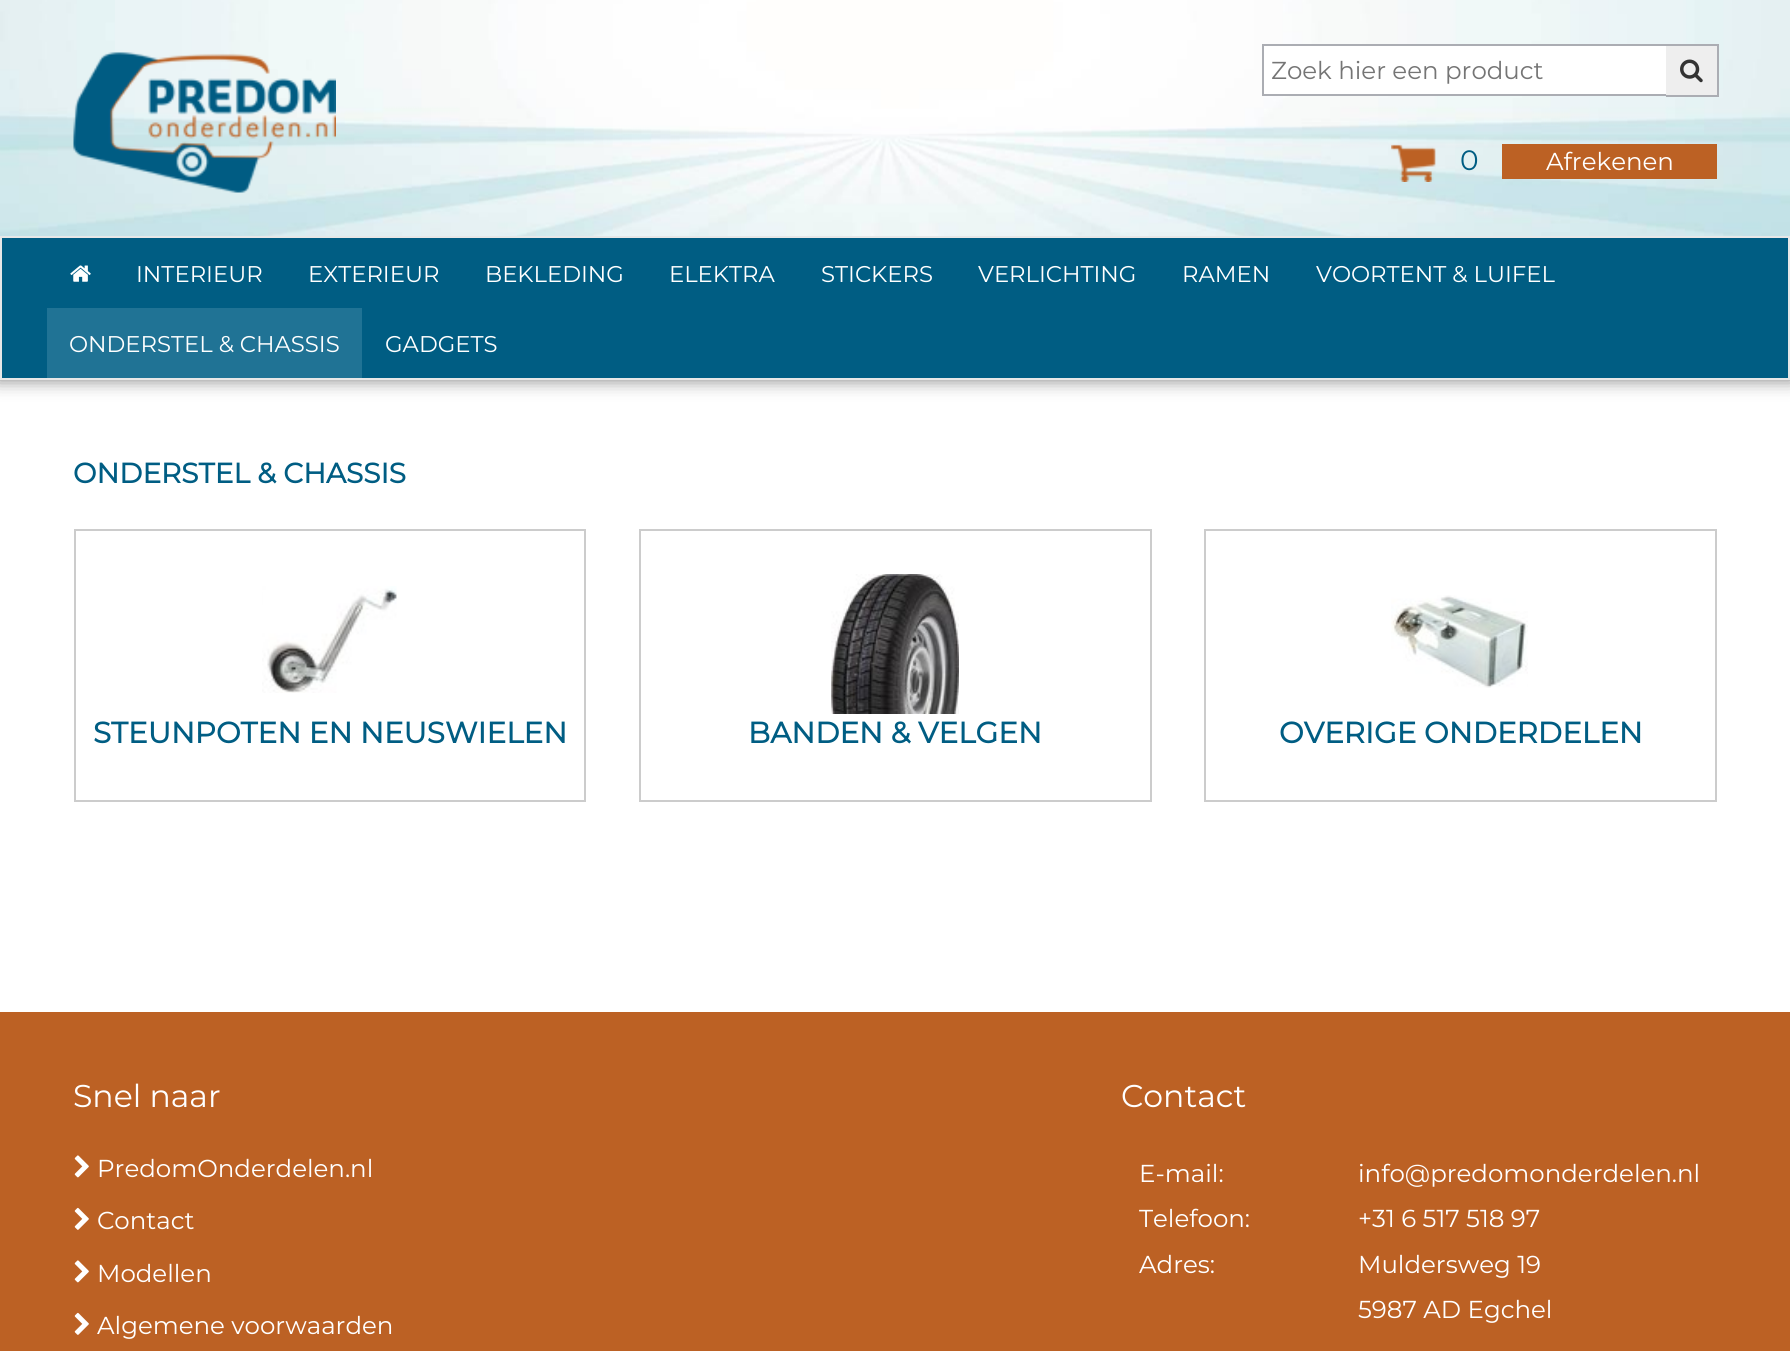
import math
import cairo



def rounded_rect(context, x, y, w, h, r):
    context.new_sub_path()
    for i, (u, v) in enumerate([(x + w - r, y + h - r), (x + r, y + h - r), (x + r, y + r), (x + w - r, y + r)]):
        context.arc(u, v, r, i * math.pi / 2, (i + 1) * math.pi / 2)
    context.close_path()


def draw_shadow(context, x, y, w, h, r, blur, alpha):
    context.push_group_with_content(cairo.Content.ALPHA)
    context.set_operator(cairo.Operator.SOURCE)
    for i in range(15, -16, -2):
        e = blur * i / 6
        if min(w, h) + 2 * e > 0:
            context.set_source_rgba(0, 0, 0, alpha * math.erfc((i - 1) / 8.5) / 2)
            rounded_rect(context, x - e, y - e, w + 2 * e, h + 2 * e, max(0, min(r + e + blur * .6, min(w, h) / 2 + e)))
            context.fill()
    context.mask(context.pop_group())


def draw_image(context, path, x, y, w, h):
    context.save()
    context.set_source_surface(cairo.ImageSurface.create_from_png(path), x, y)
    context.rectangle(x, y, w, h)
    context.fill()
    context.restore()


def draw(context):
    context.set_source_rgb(1, 1, 1)
    context.paint()
    draw_image(context, "images/1.png", 0, 0, 1790, 236)
    draw_image(context, "images/2.png", 73, 52, 263, 141)
    context.set_source_rgb(1, 1, 1)
    context.rectangle(1264, 46, 402, 48)
    context.fill()
    context.rectangle(1263, 45, 453, 50)
    context.set_source_rgb(171 / 255, 173 / 255, 179 / 255)
    context.stroke()
    context.set_source_rgb(238 / 255, 238 / 255, 238 / 255)
    context.rectangle(1666, 46, 51, 49)
    context.fill()
    context.set_source_rgb(171 / 255, 173 / 255, 179 / 255)
    context.rectangle(1717, 44, 2, 52)
    context.fill()
    context.rectangle(1666, 96, 53, 1)
    context.fill()
    draw_image(context, "images/3.png", 1680, 59, 23, 24)
    draw_image(context, "images/4.png", 1391, 144, 45, 38)
    context.set_source_rgb(188 / 255, 97 / 255, 36 / 255)
    context.rectangle(1502, 144, 215, 35)
    context.fill()
    context.set_source_rgb(128 / 255, 128 / 255, 128 / 255)
    draw_shadow(context, 0, 376, 1790, 4, 0, 9, 1)
    context.set_source_rgb(0, 93 / 255, 131 / 255)
    context.rectangle(1, 237, 1788, 142)
    context.fill_preserve()
    context.set_source_rgb(231 / 255, 231 / 255, 231 / 255)
    context.stroke()
    draw_image(context, "images/5.png", 70, 265, 21, 17)
    context.set_source_rgb(32 / 255, 115 / 255, 149 / 255)
    context.rectangle(47, 308, 315, 70)
    context.fill()
    context.rectangle(75, 530, 510, 271)
    context.set_source_rgb(204 / 255, 204 / 255, 204 / 255)
    context.stroke()
    draw_image(context, "images/6.png", 262, 586, 135, 107)
    context.rectangle(640, 530, 511, 271)
    context.stroke()
    draw_image(context, "images/7.png", 831, 574, 128, 140)
    context.rectangle(1205, 530, 511, 271)
    context.stroke()
    draw_image(context, "images/8.png", 1391, 595, 137, 93)
    context.set_source_rgb(188 / 255, 97 / 255, 36 / 255)
    context.rectangle(0, 1012, 1790, 339)
    context.fill()
    draw_image(context, "images/9.png", 74, 1155, 15, 23)
    draw_image(context, "images/10.png", 74, 1207, 15, 23)
    draw_image(context, "images/9.png", 74, 1260, 15, 23)
    draw_image(context, "images/10.png", 74, 1312, 15, 23)
    context.select_font_face("Montserrat Thin")
    context.set_font_size(24.5)
    context.set_source_rgb(117 / 255, 117 / 255, 117 / 255)
    context.move_to(1271, 79)
    context.show_text("Zoek hier een product")
    context.set_font_size(28)
    context.set_source_rgb(0, 93 / 255, 131 / 255)
    context.move_to(1460, 170)
    context.show_text("0")
    context.set_font_size(24.5)
    context.set_source_rgb(1, 1, 1)
    context.move_to(1546, 170)
    context.show_text("Afrekenen")
    context.set_font_size(22.75)
    context.move_to(136, 282)
    context.show_text("INTERIEUR")
    context.move_to(308, 282)
    context.show_text("EXTERIEUR")
    context.move_to(485, 282)
    context.show_text("BEKLEDING")
    context.move_to(669, 282)
    context.show_text("ELEKTRA")
    context.move_to(821, 282)
    context.show_text("STICKERS")
    context.move_to(978, 282)
    context.show_text("VERLICHTING")
    context.move_to(1182, 282)
    context.show_text("RAMEN")
    context.move_to(1316, 282)
    context.show_text("VOORTENT & LUIFEL")
    context.move_to(69, 352)
    context.show_text("ONDERSTEL & CHASSIS")
    context.move_to(385, 352)
    context.show_text("GADGETS")
    context.select_font_face("Montserrat", cairo.FontSlant.NORMAL, cairo.FontWeight.BOLD)
    context.set_font_size(28)
    context.set_source_rgb(0, 93 / 255, 131 / 255)
    context.move_to(73, 483)
    context.show_text("ONDERSTEL & CHASSIS")
    context.set_font_size(29.4)
    context.move_to(93, 743)
    context.show_text("STEUNPOTEN EN NEUSWIELEN")
    context.move_to(748, 743)
    context.show_text("BANDEN & VELGEN")
    context.move_to(1279, 743)
    context.show_text("OVERIGE ONDERDELEN")
    context.select_font_face("Montserrat Thin")
    context.set_font_size(31.5)
    context.set_source_rgb(1, 1, 1)
    context.move_to(73, 1107)
    context.show_text("Snel naar")
    context.set_font_size(24.5)
    context.move_to(97, 1177)
    context.show_text("PredomOnderdelen.nl")
    context.move_to(97, 1229)
    context.show_text("Contact")
    context.move_to(97, 1282)
    context.show_text("Modellen")
    context.move_to(97, 1334)
    context.show_text("Algemene voorwaarden")
    context.set_font_size(31.5)
    context.move_to(1121, 1107)
    context.show_text("Contact")
    context.set_font_size(24.5)
    context.move_to(1139, 1182)
    context.show_text("E-mail:")
    context.move_to(1358, 1182)
    context.show_text("info@predomonderdelen.nl")
    context.move_to(1139, 1227)
    context.show_text("Telefoon:")
    context.move_to(1358, 1227)
    context.show_text("+31 6 517 518 97")
    context.move_to(1139, 1273)
    context.show_text("Adres:")
    context.move_to(1358, 1273)
    context.show_text("Muldersweg 19")
    context.move_to(1358, 1318)
    context.show_text("5987 AD Egchel")


surface = cairo.ImageSurface(cairo.Format.RGB24, 1790, 1351)
context = cairo.Context(surface)
options = cairo.FontOptions()
options.set_hint_metrics(cairo.HintMetrics.OFF)
options.set_hint_style(cairo.HintStyle.NONE)
context.set_font_options(options)
context.set_miter_limit(4)
draw(context)
surface.write_to_png("out.png")
